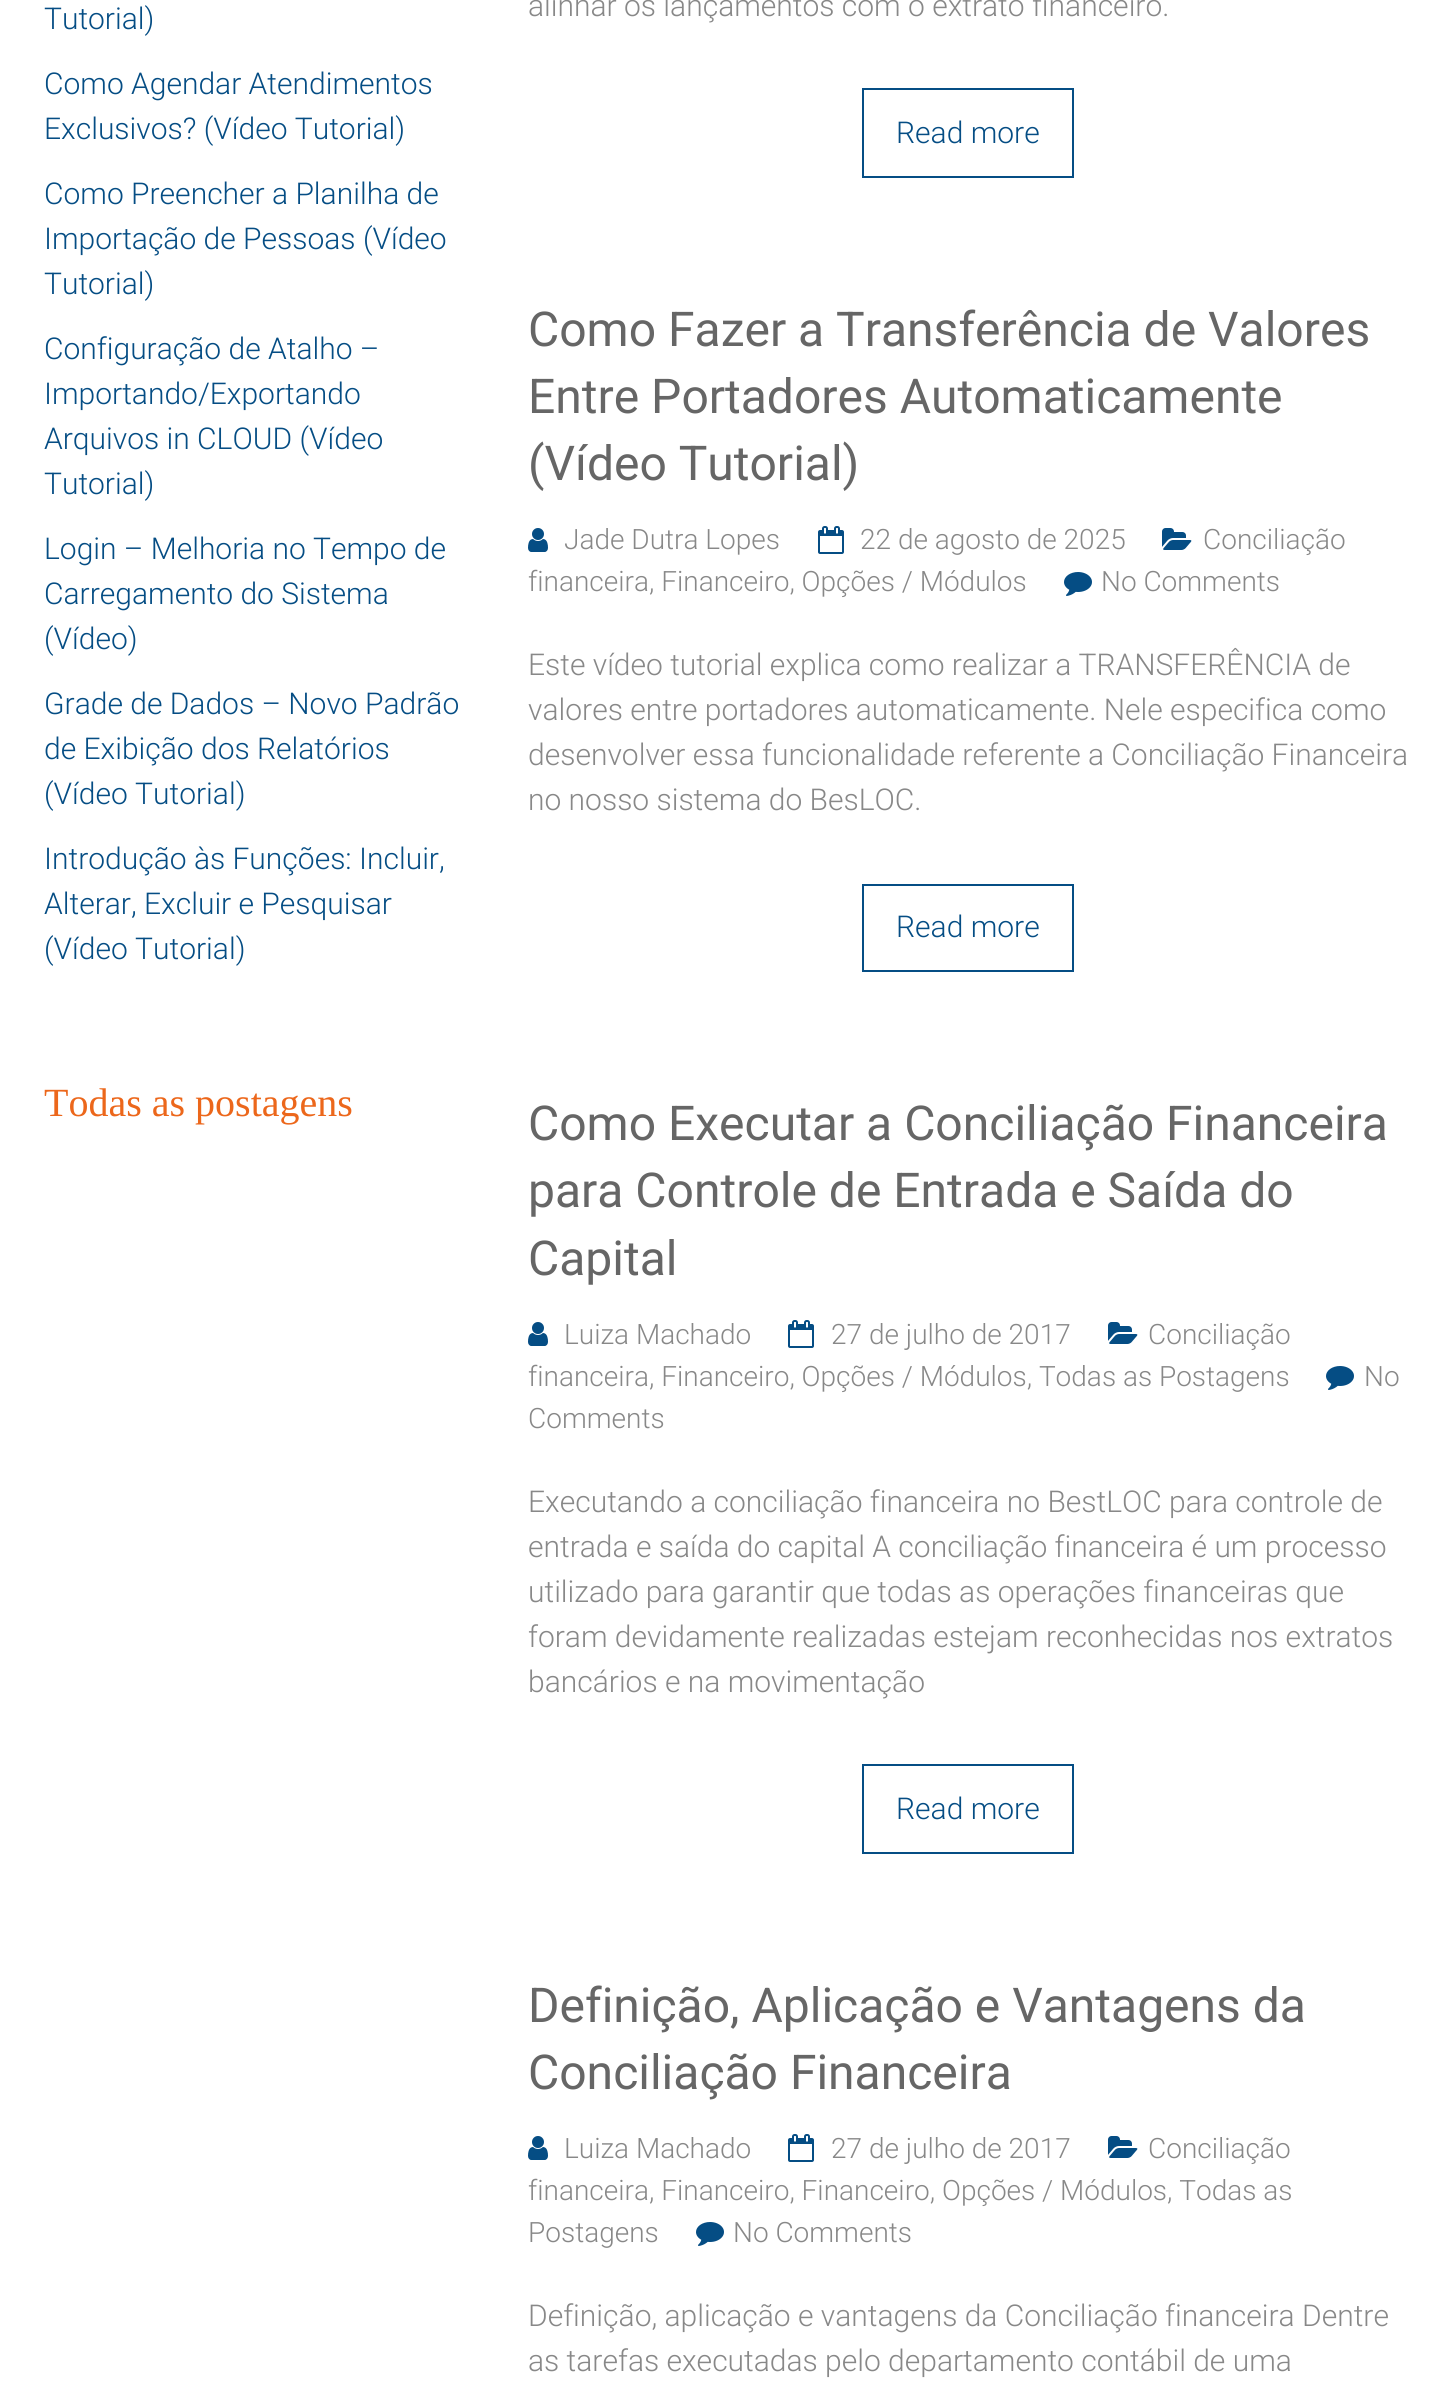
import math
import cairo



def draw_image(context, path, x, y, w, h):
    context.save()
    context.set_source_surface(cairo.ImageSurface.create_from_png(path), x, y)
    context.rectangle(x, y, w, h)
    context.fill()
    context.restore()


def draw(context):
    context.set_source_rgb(1, 1, 1)
    context.paint()
    context.rectangle(863, 89, 210, 88)
    context.set_source_rgb(5 / 255, 77 / 255, 132 / 255)
    context.stroke()
    draw_image(context, "images/1.png", 1162, 528, 30, 22)
    draw_image(context, "images/2.png", 528, 528, 20, 24)
    draw_image(context, "images/3.png", 818, 526, 26, 28)
    draw_image(context, "images/4.png", 1064, 572, 28, 24)
    context.rectangle(863, 885, 210, 86)
    context.stroke()
    draw_image(context, "images/1.png", 1108, 1322, 30, 22)
    draw_image(context, "images/2.png", 528, 1322, 20, 24)
    draw_image(context, "images/3.png", 788, 1320, 26, 28)
    draw_image(context, "images/4.png", 1326, 1366, 28, 24)
    context.rectangle(863, 1765, 210, 88)
    context.stroke()
    draw_image(context, "images/1.png", 1108, 2136, 30, 22)
    draw_image(context, "images/2.png", 528, 2136, 20, 24)
    draw_image(context, "images/3.png", 788, 2134, 26, 28)
    draw_image(context, "images/4.png", 696, 2222, 28, 24)
    context.select_font_face("Roboto Light")
    context.set_font_size(30)
    context.move_to(44, 29)
    context.show_text("Tutorial)")
    context.move_to(44, 94)
    context.show_text("Como Agendar Atendimentos")
    context.move_to(44, 139)
    context.show_text("Exclusivos? (Vídeo Tutorial)")
    context.move_to(44, 204)
    context.show_text("Como Preencher a Planilha de")
    context.move_to(44, 249)
    context.show_text("Importação de Pessoas (Vídeo")
    context.move_to(44, 294)
    context.show_text("Tutorial)")
    context.move_to(44, 359)
    context.show_text("Configuração de Atalho –")
    context.move_to(44, 404)
    context.show_text("Importando/Exportando")
    context.move_to(44, 449)
    context.show_text("Arquivos in CLOUD (Vídeo")
    context.move_to(44, 494)
    context.show_text("Tutorial)")
    context.move_to(44, 559)
    context.show_text("Login – Melhoria no Tempo de")
    context.move_to(44, 604)
    context.show_text("Carregamento do Sistema")
    context.move_to(44, 649)
    context.show_text("(Vídeo)")
    context.move_to(44, 714)
    context.show_text("Grade de Dados – Novo Padrão")
    context.move_to(44, 759)
    context.show_text("de Exibição dos Relatórios")
    context.move_to(44, 804)
    context.show_text("(Vídeo Tutorial)")
    context.move_to(44, 869)
    context.show_text("Introdução às Funções: Incluir,")
    context.move_to(44, 914)
    context.show_text("Alterar, Excluir e Pesquisar")
    context.move_to(44, 959)
    context.show_text("(Vídeo Tutorial)")
    context.select_font_face("Liberation Serif")
    context.set_font_size(40)
    context.set_source_rgb(236 / 255, 103 / 255, 27 / 255)
    context.move_to(44, 1116)
    context.show_text("Todas as postagens")
    context.select_font_face("Roboto Light")
    context.set_font_size(30)
    context.set_source_rgb(136 / 255, 136 / 255, 136 / 255)
    context.move_to(528, 16)
    context.show_text("alinhar os lançamentos com o extrato financeiro.")
    context.set_source_rgb(5 / 255, 77 / 255, 132 / 255)
    context.move_to(896, 143)
    context.show_text("Read more")
    context.select_font_face("Roboto")
    context.set_font_size(48)
    context.set_source_rgb(102 / 255, 102 / 255, 102 / 255)
    context.move_to(528, 346)
    context.show_text("Como Fazer a Transferência de Valores")
    context.move_to(528, 413)
    context.show_text("Entre Portadores Automaticamente")
    context.move_to(528, 480)
    context.show_text("(Vídeo Tutorial)")
    context.select_font_face("Roboto Light")
    context.set_font_size(28)
    context.set_source_rgb(136 / 255, 136 / 255, 136 / 255)
    context.move_to(1203, 549)
    context.show_text("Conciliação")
    context.move_to(528, 591)
    context.show_text("financeira, Financeiro, Opções / Módulos")
    context.move_to(564, 549)
    context.show_text("Jade Dutra Lopes")
    context.move_to(860, 549)
    context.show_text("22 de agosto de 2025")
    context.move_to(1101, 591)
    context.show_text("No Comments")
    context.set_font_size(30)
    context.move_to(528, 675)
    context.show_text("Este vídeo tutorial explica como realizar a TRANSFERÊNCIA de")
    context.move_to(528, 720)
    context.show_text("valores entre portadores automaticamente. Nele especifica como")
    context.move_to(528, 765)
    context.show_text("desenvolver essa funcionalidade referente a Conciliação Financeira")
    context.move_to(528, 810)
    context.show_text("no nosso sistema do BesLOC.")
    context.set_source_rgb(5 / 255, 77 / 255, 132 / 255)
    context.move_to(896, 937)
    context.show_text("Read more")
    context.select_font_face("Roboto")
    context.set_font_size(48)
    context.set_source_rgb(102 / 255, 102 / 255, 102 / 255)
    context.move_to(528, 1140)
    context.show_text("Como Executar a Conciliação Financeira")
    context.move_to(528, 1207)
    context.show_text("para Controle de Entrada e Saída do")
    context.move_to(528, 1275)
    context.show_text("Capital")
    context.select_font_face("Roboto Light")
    context.set_font_size(28)
    context.set_source_rgb(136 / 255, 136 / 255, 136 / 255)
    context.move_to(1148, 1344)
    context.show_text("Conciliação")
    context.move_to(528, 1386)
    context.show_text("financeira, Financeiro, Opções / Módulos, Todas as Postagens")
    context.move_to(564, 1344)
    context.show_text("Luiza Machado")
    context.move_to(831, 1344)
    context.show_text("27 de julho de 2017")
    context.move_to(1364, 1386)
    context.show_text("No")
    context.move_to(528, 1428)
    context.show_text("Comments")
    context.set_font_size(30)
    context.move_to(528, 1512)
    context.show_text("Executando a conciliação financeira no BestLOC para controle de")
    context.move_to(528, 1557)
    context.show_text("entrada e saída do capital A conciliação financeira é um processo")
    context.move_to(528, 1602)
    context.show_text("utilizado para garantir que todas as operações financeiras que")
    context.move_to(528, 1647)
    context.show_text("foram devidamente realizadas estejam reconhecidas nos extratos")
    context.move_to(528, 1692)
    context.show_text("bancários e na movimentação")
    context.set_source_rgb(5 / 255, 77 / 255, 132 / 255)
    context.move_to(896, 1819)
    context.show_text("Read more")
    context.select_font_face("Roboto")
    context.set_font_size(48)
    context.set_source_rgb(102 / 255, 102 / 255, 102 / 255)
    context.move_to(528, 2022)
    context.show_text("Definição, Aplicação e Vantagens da")
    context.move_to(528, 2089)
    context.show_text("Conciliação Financeira")
    context.select_font_face("Roboto Light")
    context.set_font_size(28)
    context.set_source_rgb(136 / 255, 136 / 255, 136 / 255)
    context.move_to(1148, 2158)
    context.show_text("Conciliação")
    context.move_to(528, 2200)
    context.show_text("financeira, Financeiro, Financeiro, Opções / Módulos, Todas as")
    context.move_to(528, 2242)
    context.show_text("Postagens")
    context.move_to(564, 2158)
    context.show_text("Luiza Machado")
    context.move_to(831, 2158)
    context.show_text("27 de julho de 2017")
    context.move_to(733, 2242)
    context.show_text("No Comments")
    context.set_font_size(30)
    context.move_to(528, 2326)
    context.show_text("Definição, aplicação e vantagens da Conciliação financeira Dentre")
    context.move_to(528, 2371)
    context.show_text("as tarefas executadas pelo departamento contábil de uma")


surface = cairo.ImageSurface(cairo.Format.RGB24, 1451, 2396)
context = cairo.Context(surface)
options = cairo.FontOptions()
options.set_hint_metrics(cairo.HintMetrics.OFF)
options.set_hint_style(cairo.HintStyle.NONE)
context.set_font_options(options)
context.set_miter_limit(4)
draw(context)
surface.write_to_png("out.png")
